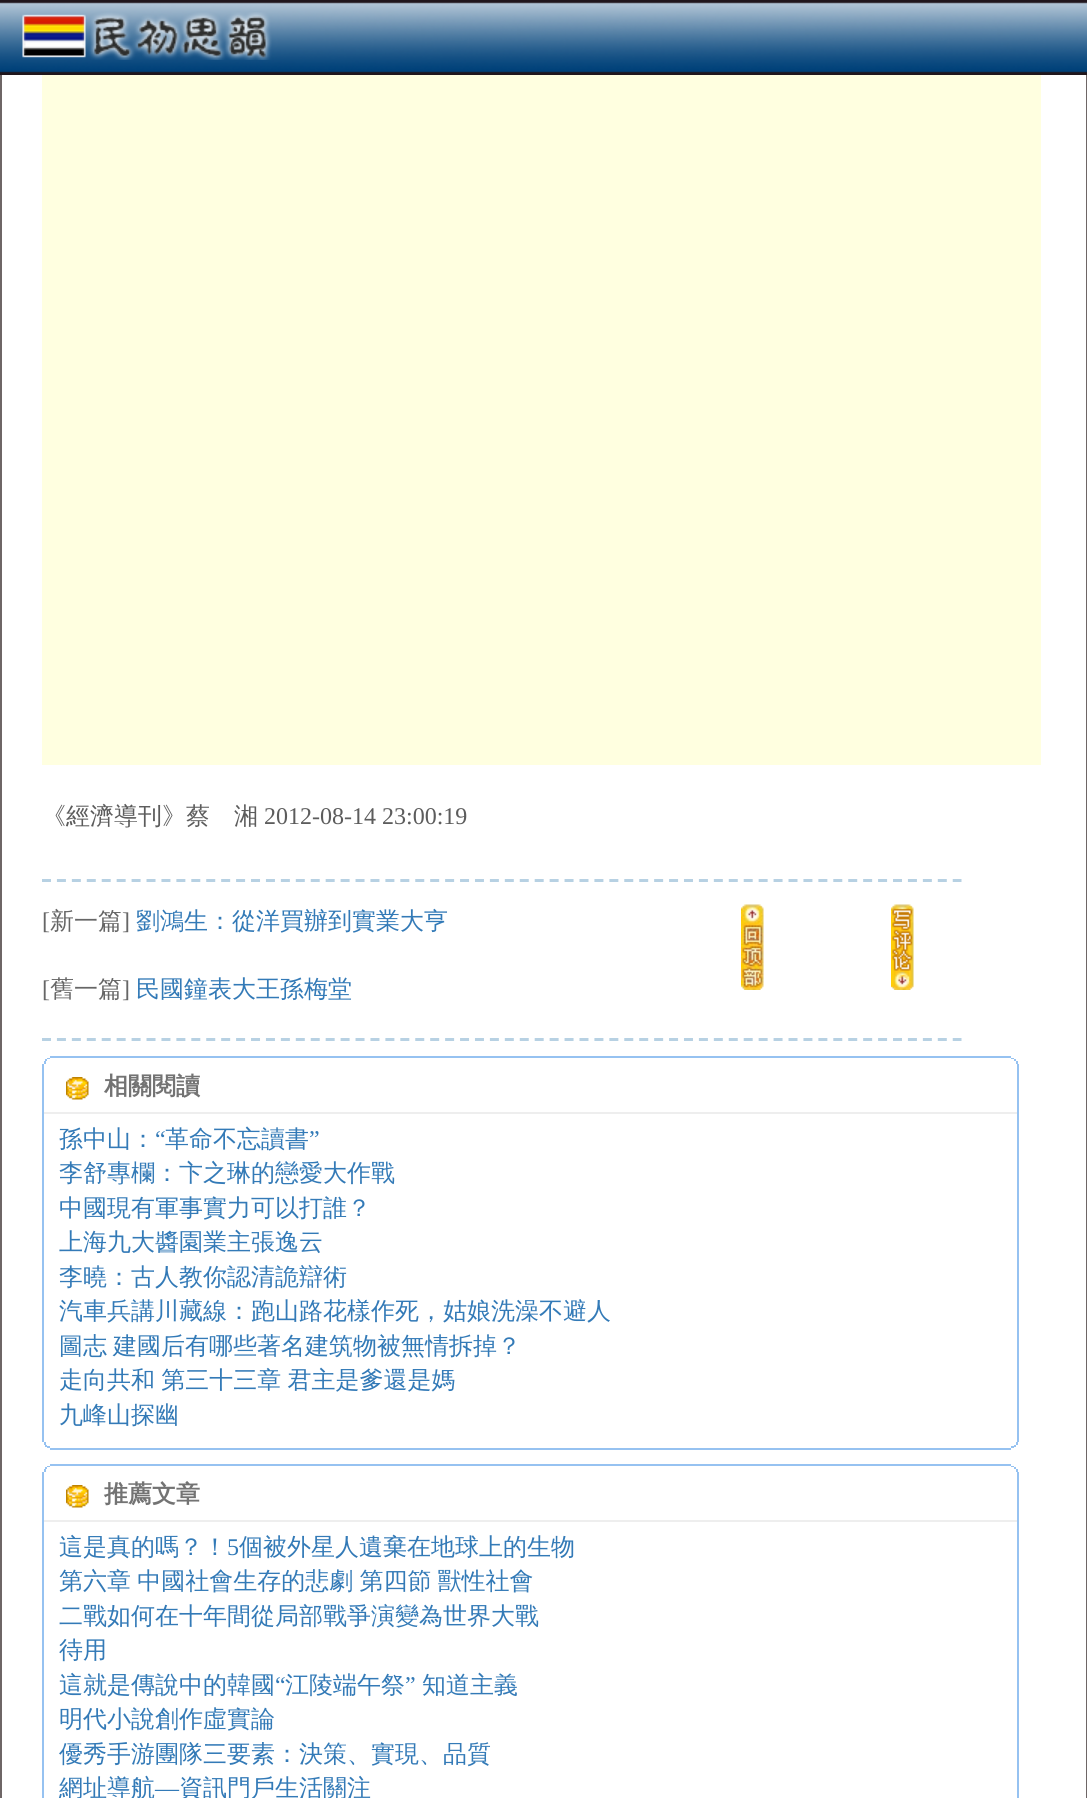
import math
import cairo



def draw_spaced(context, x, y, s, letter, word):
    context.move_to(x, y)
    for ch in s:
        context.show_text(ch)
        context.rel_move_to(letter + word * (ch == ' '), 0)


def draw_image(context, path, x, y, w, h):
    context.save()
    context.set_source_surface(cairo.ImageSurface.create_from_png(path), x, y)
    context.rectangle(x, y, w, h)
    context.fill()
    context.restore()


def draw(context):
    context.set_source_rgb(1, 1, 1)
    context.paint()
    context.rectangle(1, -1, 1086, 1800)
    context.set_source_rgb(110 / 255, 102 / 255, 102 / 255)
    context.stroke()
    draw_image(context, "images/1.png", 0, 0, 1087, 75)
    draw_image(context, "images/2.png", 22, 12, 250, 48)
    context.set_source_rgb(1, 1, 224 / 255)
    context.rectangle(42, 75, 999, 690)
    context.fill()
    context.new_path()
    context.move_to(42, 880.5)
    context.line_to(961.5, 880.5)
    context.set_source_rgb(183 / 255, 209 / 255, 227 / 255)
    context.set_line_width(3)
    context.set_dash([9, 5.93])
    context.stroke()
    draw_image(context, "images/3.png", 741, 904, 23, 86)
    draw_image(context, "images/4.png", 891, 904, 23, 86)
    context.new_path()
    context.move_to(42, 1039.5)
    context.line_to(961.5, 1039.5)
    context.stroke()
    context.set_source_rgb(150 / 255, 194 / 255, 241 / 255)
    context.rectangle(50, 1056, 961, 2)
    context.fill()
    context.rectangle(1011, 1058, 3, 1)
    context.fill()
    context.rectangle(47, 1058, 3, 1)
    context.fill()
    context.rectangle(1014, 1059, 2, 2)
    context.fill()
    context.rectangle(45, 1059, 2, 2)
    context.fill()
    context.rectangle(1016, 1061, 2, 3)
    context.fill()
    context.rectangle(44, 1061, 2, 3)
    context.fill()
    context.rectangle(1017, 1064, 2, 378)
    context.fill()
    context.rectangle(42, 1064, 2, 378)
    context.fill()
    draw_image(context, "images/5.png", 66, 1077, 23, 23)
    context.set_source_rgb(238 / 255, 238 / 255, 238 / 255)
    context.rectangle(44, 1112, 973, 2)
    context.fill()
    context.set_source_rgb(150 / 255, 194 / 255, 241 / 255)
    context.rectangle(1016, 1442, 2, 3)
    context.fill()
    context.rectangle(44, 1442, 2, 3)
    context.fill()
    context.rectangle(1014, 1445, 2, 2)
    context.fill()
    context.rectangle(45, 1445, 2, 2)
    context.fill()
    context.rectangle(1011, 1446, 3, 2)
    context.fill()
    context.rectangle(47, 1446, 3, 2)
    context.fill()
    context.rectangle(50, 1448, 961, 2)
    context.fill()
    context.rectangle(50, 1464, 961, 2)
    context.fill()
    context.rectangle(1011, 1466, 3, 1)
    context.fill()
    context.rectangle(47, 1466, 3, 1)
    context.fill()
    context.rectangle(1014, 1467, 2, 2)
    context.fill()
    context.rectangle(45, 1467, 2, 2)
    context.fill()
    context.rectangle(1016, 1469, 2, 3)
    context.fill()
    context.rectangle(44, 1469, 2, 3)
    context.fill()
    context.rectangle(1017, 1472, 2, 326)
    context.fill()
    context.rectangle(42, 1472, 2, 326)
    context.fill()
    draw_image(context, "images/5.png", 66, 1485, 23, 23)
    context.set_source_rgb(238 / 255, 238 / 255, 238 / 255)
    context.rectangle(44, 1520, 973, 2)
    context.fill()
    context.select_font_face("WenQuanYi Zen Hei Medium")
    context.set_font_size(24)
    context.set_source_rgb(92 / 255, 92 / 255, 92 / 255)
    context.move_to(42, 824)
    context.show_text("《經濟導刊》蔡　湘")
    context.select_font_face("Liberation Serif")
    context.move_to(264, 824)
    context.show_text("2012-08-14 23:00:19")
    context.set_source_rgb(102 / 255, 102 / 255, 102 / 255)
    context.move_to(42, 929)
    context.show_text("[")
    context.select_font_face("WenQuanYi Zen Hei Medium")
    context.move_to(50, 929)
    context.show_text("新一篇")
    context.select_font_face("Liberation Serif")
    context.move_to(122, 929)
    context.show_text("]")
    context.select_font_face("WenQuanYi Zen Hei Medium")
    context.set_source_rgb(51 / 255, 122 / 255, 183 / 255)
    context.move_to(136, 929)
    context.show_text("劉鴻生：從洋買辦到實業大亨")
    context.select_font_face("Liberation Serif")
    context.set_source_rgb(102 / 255, 102 / 255, 102 / 255)
    context.move_to(42, 997)
    context.show_text("[")
    context.select_font_face("WenQuanYi Zen Hei Medium")
    context.move_to(50, 997)
    context.show_text("舊一篇")
    context.select_font_face("Liberation Serif")
    context.move_to(122, 997)
    context.show_text("]")
    context.select_font_face("WenQuanYi Zen Hei Medium")
    context.set_source_rgb(51 / 255, 122 / 255, 183 / 255)
    context.move_to(136, 997)
    context.show_text("民國鐘表大王孫梅堂")
    context.select_font_face("WenQuanYi Zen Hei", cairo.FontSlant.NORMAL, cairo.FontWeight.BOLD)
    context.set_source_rgb(115 / 255, 115 / 255, 115 / 255)
    context.move_to(104, 1094)
    context.show_text("相關閱讀")
    context.select_font_face("WenQuanYi Zen Hei Medium")
    context.set_source_rgb(51 / 255, 122 / 255, 183 / 255)
    context.move_to(59, 1147)
    context.show_text("孫中山：")
    context.select_font_face("Liberation Serif")
    context.move_to(155, 1147)
    context.show_text("“")
    context.select_font_face("WenQuanYi Zen Hei Medium")
    context.move_to(165, 1147)
    context.show_text("革命不忘讀書")
    context.select_font_face("Liberation Serif")
    context.move_to(309, 1147)
    context.show_text("”")
    context.select_font_face("WenQuanYi Zen Hei Medium")
    context.move_to(59, 1181)
    context.show_text("李舒專欄：卞之琳的戀愛大作戰")
    context.move_to(59, 1216)
    context.show_text("中國現有軍事實力可以打誰？")
    context.move_to(59, 1250)
    context.show_text("上海九大醬園業主張逸云")
    context.move_to(59, 1285)
    context.show_text("李曉：古人教你認清詭辯術")
    context.move_to(59, 1319)
    context.show_text("汽車兵講川藏線：跑山路花樣作死，姑娘洗澡不避人")
    context.move_to(59, 1354)
    context.show_text("圖志")
    context.move_to(113, 1354)
    context.show_text("建國后有哪些著名建筑物被無情拆掉？")
    draw_spaced(context, 59, 1388, "走向共和 第三十三章 君主是爹還是媽", 0, -1)
    context.move_to(59, 1423)
    context.show_text("九峰山探幽")
    context.select_font_face("WenQuanYi Zen Hei", cairo.FontSlant.NORMAL, cairo.FontWeight.BOLD)
    context.set_source_rgb(115 / 255, 115 / 255, 115 / 255)
    context.move_to(104, 1502)
    context.show_text("推薦文章")
    context.select_font_face("WenQuanYi Zen Hei Medium")
    context.set_source_rgb(51 / 255, 122 / 255, 183 / 255)
    context.move_to(59, 1555)
    context.show_text("這是真的嗎？！")
    context.select_font_face("Liberation Serif")
    context.move_to(227, 1555)
    context.show_text("5")
    context.select_font_face("WenQuanYi Zen Hei Medium")
    context.move_to(239, 1555)
    context.show_text("個被外星人遺棄在地球上的生物")
    draw_spaced(context, 59, 1589, "第六章 中國社會生存的悲劇 第四節 獸性社會", 0, -1)
    context.move_to(59, 1624)
    context.show_text("二戰如何在十年間從局部戰爭演變為世界大戰")
    context.move_to(59, 1658)
    context.show_text("待用")
    context.move_to(59, 1693)
    context.show_text("這就是傳說中的韓國")
    context.select_font_face("Liberation Serif")
    context.move_to(275, 1693)
    context.show_text("“")
    context.select_font_face("WenQuanYi Zen Hei Medium")
    context.move_to(285, 1693)
    context.show_text("江陵端午祭")
    context.select_font_face("Liberation Serif")
    context.move_to(405, 1693)
    context.show_text("”")
    context.select_font_face("WenQuanYi Zen Hei Medium")
    context.move_to(422, 1693)
    context.show_text("知道主義")
    context.move_to(59, 1727)
    context.show_text("明代小說創作虛實論")
    context.move_to(59, 1762)
    context.show_text("優秀手游團隊三要素：決策、實現、品質")
    context.move_to(59, 1796)
    context.show_text("網址導航")
    context.select_font_face("Liberation Serif")
    context.move_to(155, 1796)
    context.show_text("—")
    context.select_font_face("WenQuanYi Zen Hei Medium")
    context.move_to(179, 1796)
    context.show_text("資訊門戶生活關注")


surface = cairo.ImageSurface(cairo.Format.RGB24, 1087, 1798)
context = cairo.Context(surface)
options = cairo.FontOptions()
options.set_hint_metrics(cairo.HintMetrics.OFF)
options.set_hint_style(cairo.HintStyle.NONE)
context.set_font_options(options)
context.set_miter_limit(4)
draw(context)
surface.write_to_png("out.png")
